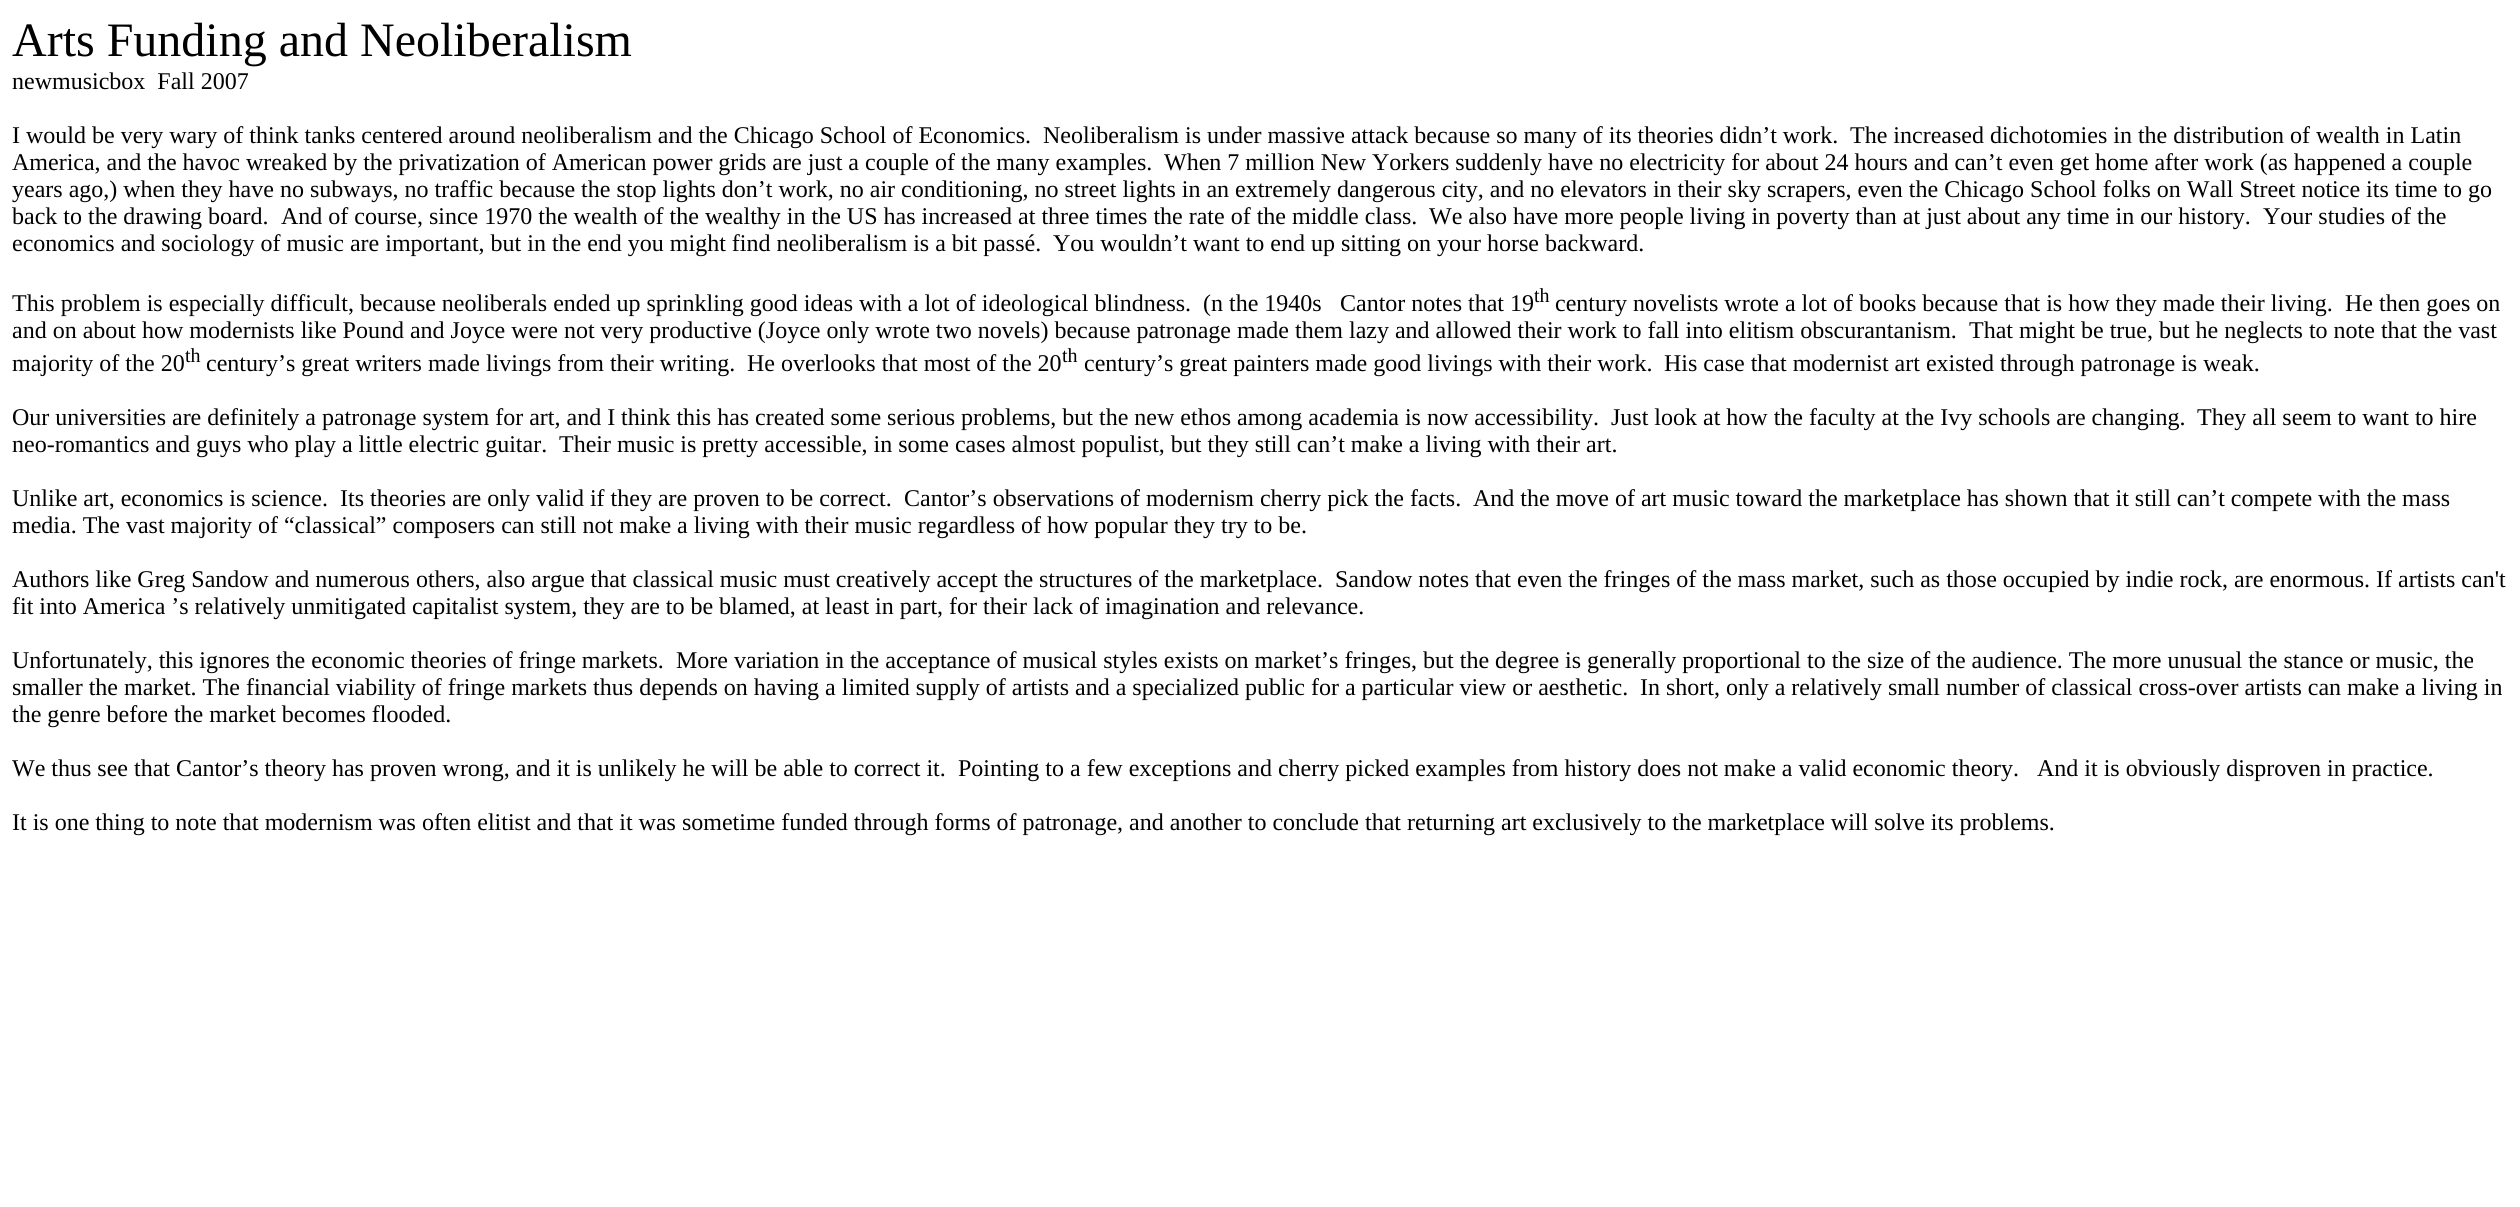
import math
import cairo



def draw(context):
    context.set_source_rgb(1, 1, 1)
    context.paint()
    context.select_font_face("Liberation Serif")
    context.set_font_size(48)
    context.set_source_rgb(0, 0, 0)
    context.move_to(12, 56)
    context.show_text("Arts Funding and Neoliberalism")
    context.set_font_size(24)
    context.move_to(12, 89)
    context.show_text("newmusicbox  Fall 2007")
    context.move_to(12, 143)
    context.show_text("I would be very wary of think tanks centered around neoliberalism and the Chicago School of Economics.")
    context.move_to(1043, 143)
    context.show_text("Neoliberalism is under massive attack because so many of its theories didn’t work.")
    context.move_to(1850, 143)
    context.show_text("The increased dichotomies in the distribution of wealth in Latin")
    context.move_to(12, 170)
    context.show_text("America, and the havoc wreaked by the privatization of American power grids are just a couple of the many examples.")
    context.move_to(1164, 170)
    context.show_text("When 7 million New Yorkers suddenly have no electricity for about 24 hours and can’t even get home after work (as happened a couple")
    context.move_to(12, 197)
    context.show_text("years ago,) when they have no subways, no traffic because the stop lights don’t work, no air conditioning, no street lights in an extremely dangerous city, and no elevators in their sky scrapers, even the Chicago School folks on Wall Street notice its time to go")
    context.move_to(12, 224)
    context.show_text("back to the drawing board.")
    context.move_to(281, 224)
    context.show_text("And of course, since 1970 the wealth of the wealthy in the US has increased at three times the rate of the middle class.")
    context.move_to(1429, 224)
    context.show_text("We also have more people living in poverty than at just about any time in our history.")
    context.move_to(2263, 224)
    context.show_text("Your studies of the")
    context.move_to(12, 251)
    context.show_text("economics and sociology of music are important, but in the end you might find neoliberalism is a bit passé.")
    context.move_to(1053, 251)
    context.show_text("You wouldn’t want to end up sitting on your horse backward.")
    context.move_to(12, 311)
    context.show_text("This problem is especially difficult, because neoliberals ended up sprinkling good ideas with a lot of ideological blindness.")
    context.move_to(1203, 311)
    context.show_text("(n the 1940s")
    context.move_to(1340, 311)
    context.show_text("Cantor notes that 19")
    context.set_font_size(20)
    context.move_to(1534, 302)
    context.show_text("th")
    context.set_font_size(24)
    context.move_to(1555, 311)
    context.show_text("century novelists wrote a lot of books because that is how they made their living.")
    context.move_to(2345, 311)
    context.show_text("He then goes on")
    context.move_to(12, 338)
    context.show_text("and on about how modernists like Pound and Joyce were not very productive (Joyce only wrote two novels) because patronage made them lazy and allowed their work to fall into elitism obscurantanism.")
    context.move_to(1969, 338)
    context.show_text("That might be true, but he neglects to note that the vast")
    context.move_to(12, 371)
    context.show_text("majority of the 20")
    context.set_font_size(20)
    context.move_to(185, 362)
    context.show_text("th")
    context.set_font_size(24)
    context.move_to(206, 371)
    context.show_text("century’s great writers made livings from their writing.")
    context.move_to(747, 371)
    context.show_text("He overlooks that most of the 20")
    context.set_font_size(20)
    context.move_to(1062, 362)
    context.show_text("th")
    context.set_font_size(24)
    context.move_to(1084, 371)
    context.show_text("century’s great painters made good livings with their work.")
    context.move_to(1664, 371)
    context.show_text("His case that modernist art existed through patronage is weak.")
    context.move_to(12, 425)
    context.show_text("Our universities are definitely a patronage system for art, and I think this has created some serious problems, but the new ethos among academia is now accessibility.")
    context.move_to(1611, 425)
    context.show_text("Just look at how the faculty at the Ivy schools are changing.")
    context.move_to(2197, 425)
    context.show_text("They all seem to want to hire")
    context.move_to(12, 452)
    context.show_text("neo-romantics and guys who play a little electric guitar.")
    context.move_to(559, 452)
    context.show_text("Their music is pretty accessible, in some cases almost populist, but they still can’t make a living with their art.")
    context.move_to(12, 506)
    context.show_text("Unlike art, economics is science.")
    context.move_to(340, 506)
    context.show_text("Its theories are only valid if they are proven to be correct.")
    context.move_to(904, 506)
    context.show_text("Cantor’s observations of modernism cherry pick the facts.")
    context.move_to(1473, 506)
    context.show_text("And the move of art music toward the marketplace has shown that it still can’t compete with the mass")
    context.move_to(12, 533)
    context.show_text("media. The vast majority of “classical” composers can still not make a living with their music regardless of how popular they try to be.")
    context.move_to(12, 587)
    context.show_text("Authors like Greg Sandow and numerous others, also argue that classical music must creatively accept the structures of the marketplace.")
    context.move_to(1335, 587)
    context.show_text("Sandow notes that even the fringes of the mass market, such as those occupied by indie rock, are enormous. If artists can't")
    context.move_to(12, 614)
    context.show_text("fit into America ’s relatively unmitigated capitalist system, they are to be blamed, at least in part, for their lack of imagination and relevance.")
    context.move_to(12, 668)
    context.show_text("Unfortunately, this ignores the economic theories of fringe markets.")
    context.move_to(676, 668)
    context.show_text("More variation in the acceptance of musical styles exists on market’s fringes, but the degree is generally proportional to the size of the audience. The more unusual the stance or music, the")
    context.move_to(12, 695)
    context.show_text("smaller the market. The financial viability of fringe markets thus depends on having a limited supply of artists and a specialized public for a particular view or aesthetic.")
    context.move_to(1640, 695)
    context.show_text("In short, only a relatively small number of classical cross-over artists can make a living in")
    context.move_to(12, 722)
    context.show_text("the genre before the market becomes flooded.")
    context.move_to(12, 776)
    context.show_text("We thus see that Cantor’s theory has proven wrong, and it is unlikely he will be able to correct it.")
    context.move_to(958, 776)
    context.show_text("Pointing to a few exceptions and cherry picked examples from history does not make a valid economic theory.")
    context.move_to(2037, 776)
    context.show_text("And it is obviously disproven in practice.")
    context.move_to(12, 830)
    context.show_text("It is one thing to note that modernism was often elitist and that it was sometime funded through forms of patronage, and another to conclude that returning art exclusively to the marketplace will solve its problems.")


surface = cairo.ImageSurface(cairo.Format.RGB24, 2520, 1207)
context = cairo.Context(surface)
options = cairo.FontOptions()
options.set_hint_metrics(cairo.HintMetrics.OFF)
options.set_hint_style(cairo.HintStyle.NONE)
context.set_font_options(options)
context.set_miter_limit(4)
draw(context)
surface.write_to_png("out.png")
